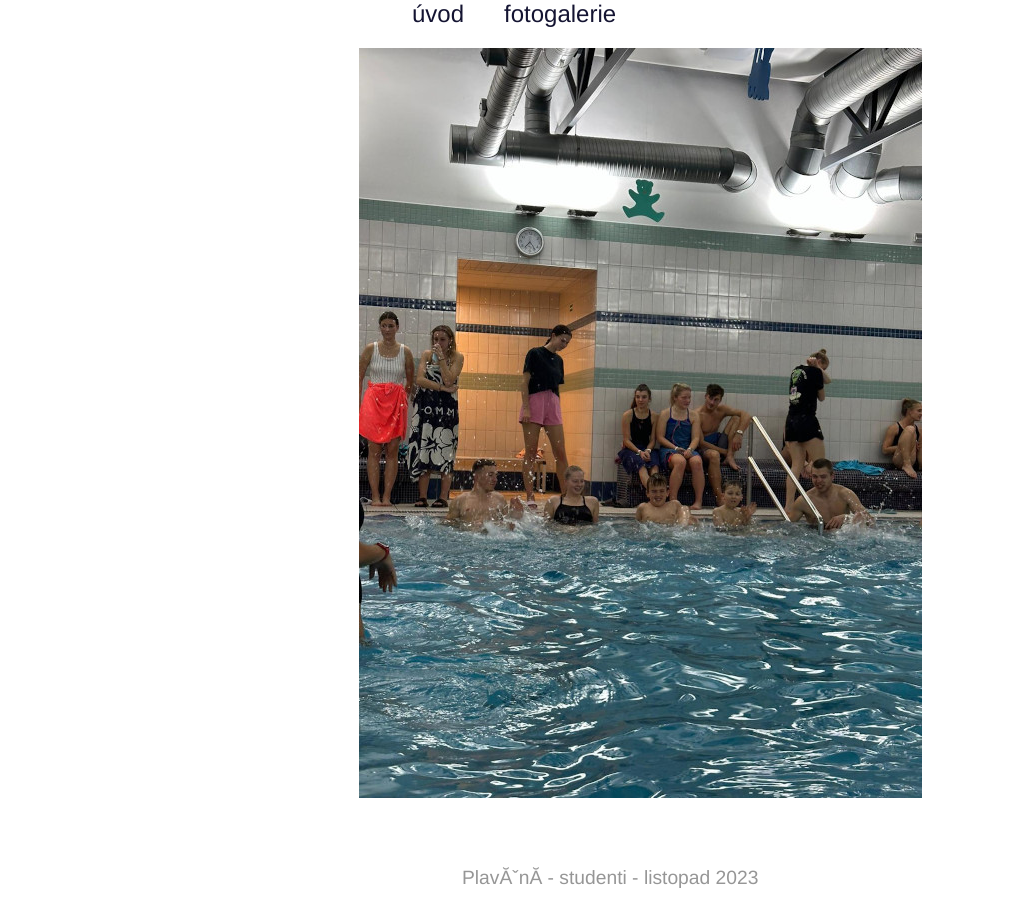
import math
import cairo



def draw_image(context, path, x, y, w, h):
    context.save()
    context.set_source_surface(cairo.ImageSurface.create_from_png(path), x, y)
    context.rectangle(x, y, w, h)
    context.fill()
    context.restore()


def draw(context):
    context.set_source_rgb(1, 1, 1)
    context.paint()
    draw_image(context, "images/1.png", 359, 48, 563, 750)
    context.select_font_face("Liberation Sans")
    context.set_font_size(24)
    context.set_source_rgb(20 / 255, 20 / 255, 50 / 255)
    context.move_to(412, 22)
    context.show_text("úvod")
    context.move_to(504, 22)
    context.show_text("fotogalerie")
    context.set_font_size(19.25)
    context.set_source_rgb(150 / 255, 150 / 255, 150 / 255)
    context.move_to(462, 884)
    context.show_text("PlavĂˇnĂ - studenti - listopad 2023")


surface = cairo.ImageSurface(cairo.Format.RGB24, 1029, 924)
context = cairo.Context(surface)
options = cairo.FontOptions()
options.set_hint_metrics(cairo.HintMetrics.OFF)
options.set_hint_style(cairo.HintStyle.NONE)
context.set_font_options(options)
context.set_miter_limit(4)
draw(context)
surface.write_to_png("out.png")
